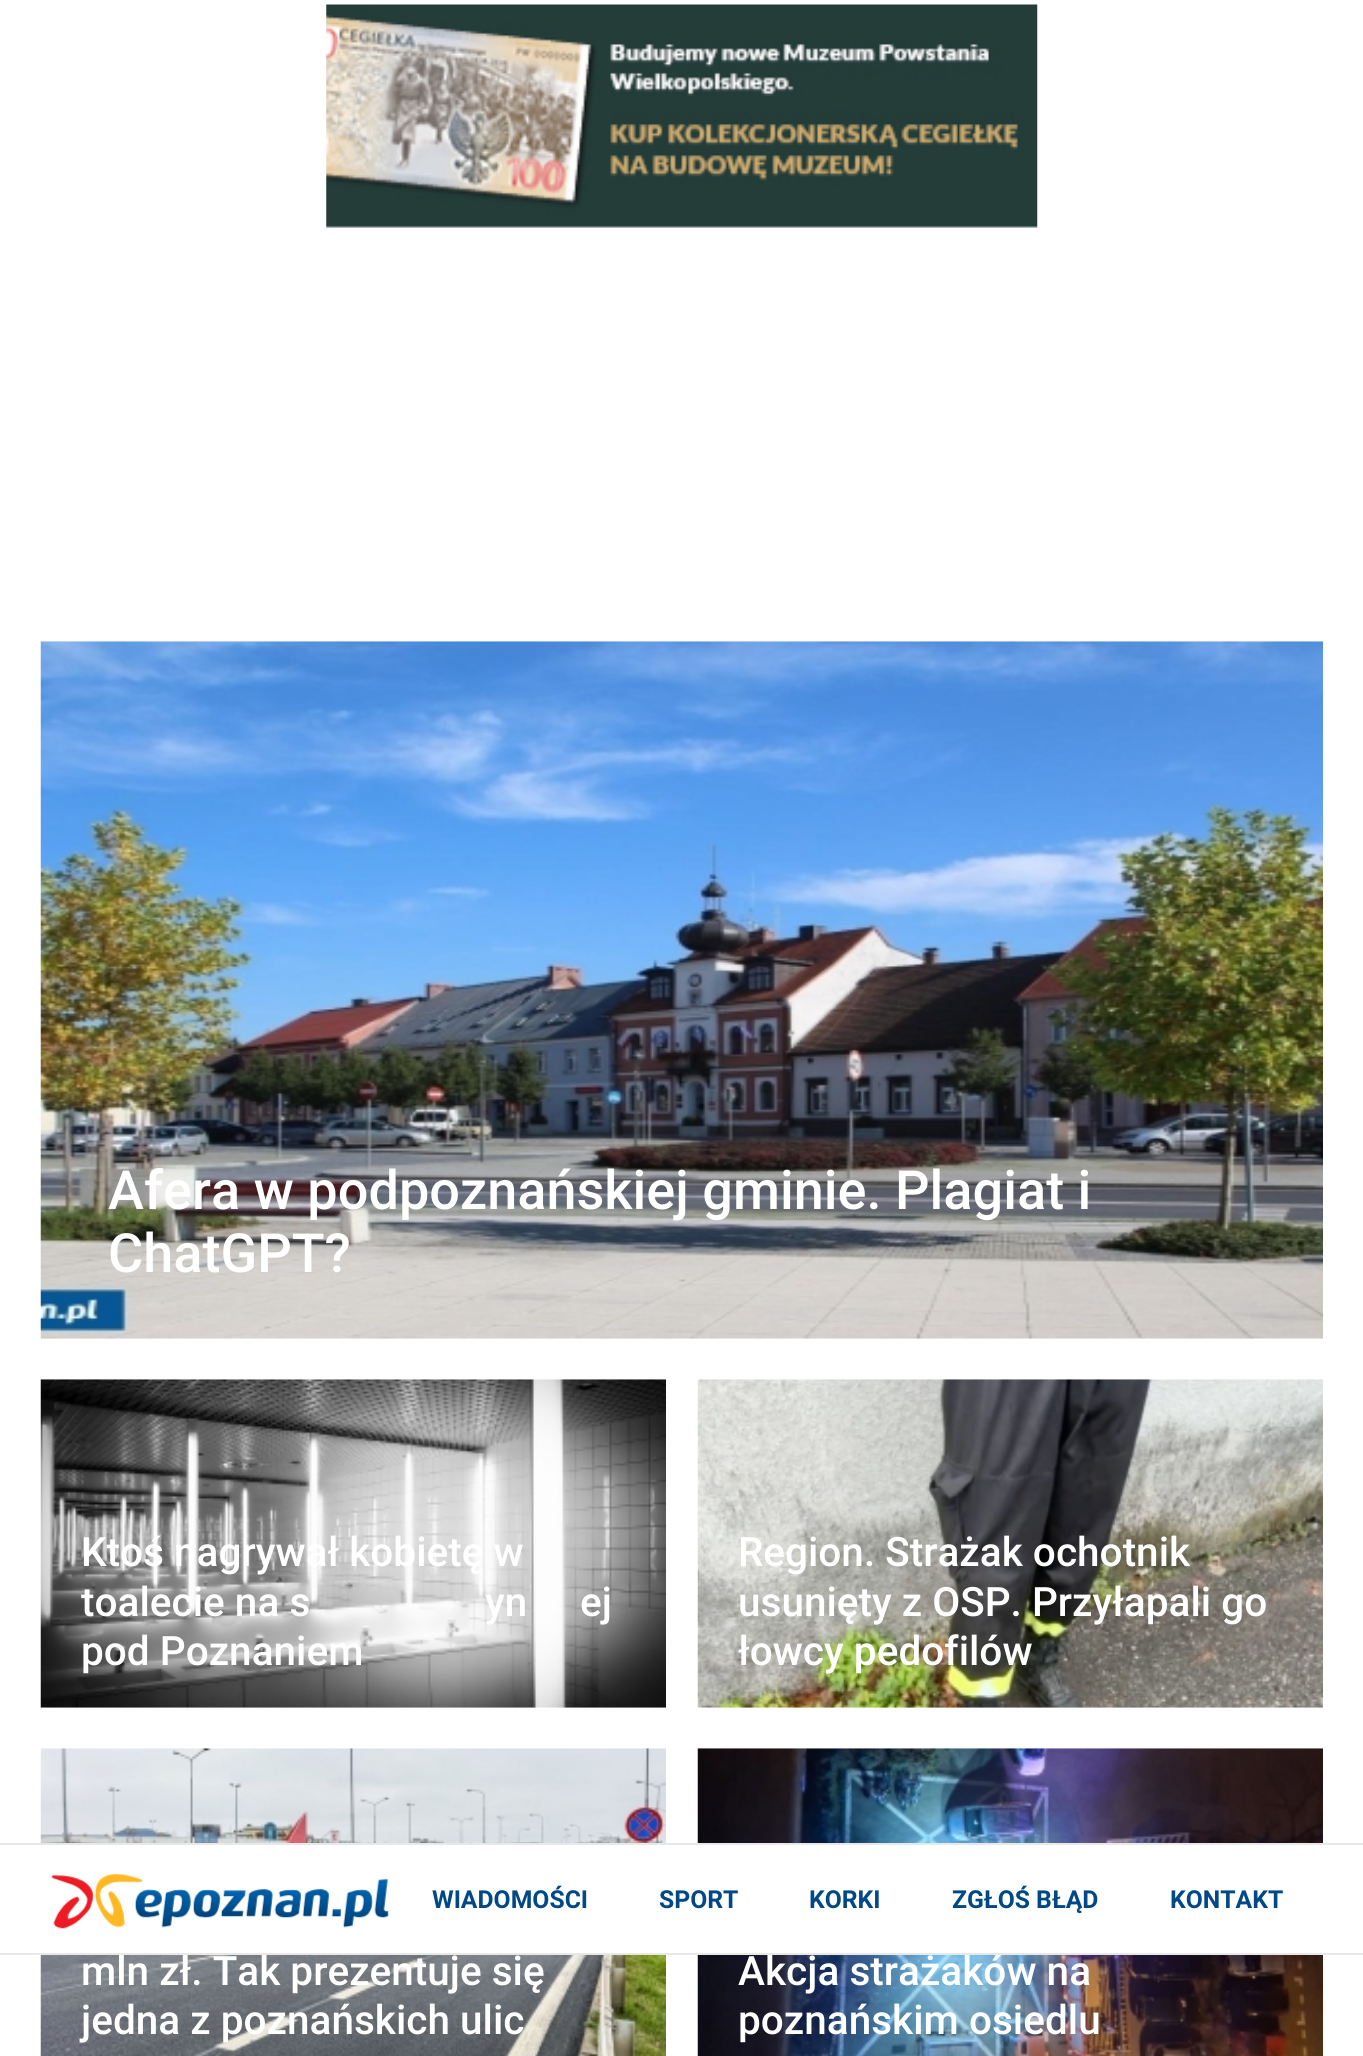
import math
import cairo



def draw_image(context, path, x, y, w, h):
    context.save()
    context.set_source_surface(cairo.ImageSurface.create_from_png(path), x, y)
    context.rectangle(x, y, w, h)
    context.fill()
    context.restore()


def draw(context):
    context.set_source_rgb(1, 1, 1)
    context.paint()
    draw_image(context, "images/1.png", 326, 4, 712, 224)
    draw_image(context, "images/2.png", 40, 641, 1283, 698)
    draw_image(context, "images/3.png", 40, 1379, 626, 329)
    draw_image(context, "images/4.png", 697, 1379, 626, 329)
    draw_image(context, "images/5.png", 40, 1748, 626, 308)
    draw_image(context, "images/6.png", 697, 1748, 626, 308)
    context.set_source_rgb(1, 1, 1)
    context.rectangle(40, 1845, 1283, 108)
    context.fill()
    context.set_source_rgb(232 / 255, 232 / 255, 232 / 255)
    context.rectangle(0, 1843, 1363, 2)
    context.fill()
    draw_image(context, "images/7.png", 51, 1874, 338, 55)
    context.select_font_face("Roboto Medium")
    context.set_font_size(54)
    context.set_source_rgb(1, 1, 1)
    context.move_to(108, 1209)
    context.show_text("Afera w podpoznańskiej gminie. Plagiat i")
    context.move_to(108, 1272)
    context.show_text("ChatGPT?")
    context.set_font_size(40.5)
    context.move_to(81, 1566)
    context.show_text("Ktoś nagrywał kobietę w")
    context.move_to(81, 1616)
    context.show_text("toalecie na s")
    context.move_to(485, 1616)
    context.show_text("yn")
    context.move_to(580, 1616)
    context.show_text("ej")
    context.move_to(81, 1665)
    context.show_text("pod Poznaniem")
    context.move_to(738, 1566)
    context.show_text("Region. Strażak ochotnik")
    context.move_to(738, 1616)
    context.show_text("usunięty z OSP. Przyłapali go")
    context.move_to(738, 1665)
    context.show_text("łowcy pedofilów")
    context.move_to(81, 1985)
    context.show_text("mln zł. Tak prezentuje się")
    context.move_to(81, 2034)
    context.show_text("jedna z poznańskich ulic")
    context.move_to(738, 1985)
    context.show_text("Akcja strażaków na")
    context.move_to(738, 2034)
    context.show_text("poznańskim osiedlu")
    context.set_source_rgb(232 / 255, 232 / 255, 232 / 255)
    context.rectangle(0, 1953, 1363, 2)
    context.fill()
    context.select_font_face("Roboto", cairo.FontSlant.NORMAL, cairo.FontWeight.BOLD)
    context.set_font_size(24.75)
    context.set_source_rgb(0, 73 / 255, 134 / 255)
    context.move_to(432, 1908)
    context.show_text("WIADOMOŚCI")
    context.move_to(659, 1908)
    context.show_text("SPORT")
    context.move_to(809, 1908)
    context.show_text("KORKI")
    context.move_to(952, 1908)
    context.show_text("ZGŁOŚ BŁĄD")
    context.move_to(1170, 1908)
    context.show_text("KONTAKT")


surface = cairo.ImageSurface(cairo.Format.RGB24, 1363, 2056)
context = cairo.Context(surface)
options = cairo.FontOptions()
options.set_hint_metrics(cairo.HintMetrics.OFF)
options.set_hint_style(cairo.HintStyle.NONE)
context.set_font_options(options)
context.set_miter_limit(4)
draw(context)
surface.write_to_png("out.png")
